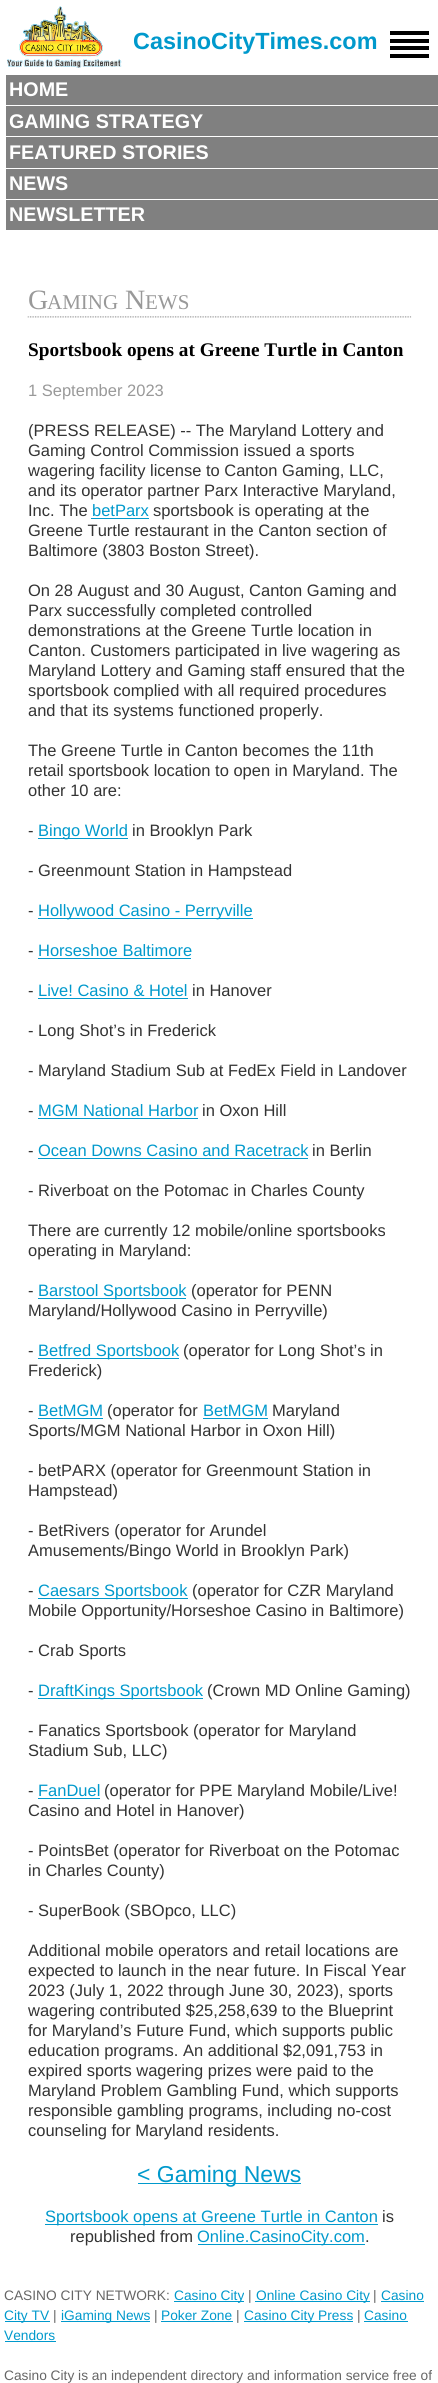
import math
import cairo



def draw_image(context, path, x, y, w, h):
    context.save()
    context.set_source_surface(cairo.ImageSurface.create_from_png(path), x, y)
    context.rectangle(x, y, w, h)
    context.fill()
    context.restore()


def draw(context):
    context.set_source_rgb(1, 1, 1)
    context.paint()
    draw_image(context, "images/1.png", 7, 6, 115, 62)
    context.set_source_rgb(0, 0, 0)
    context.rectangle(390, 31, 39, 4)
    context.fill()
    context.rectangle(390, 39, 39, 4)
    context.fill()
    context.rectangle(390, 46, 39, 4)
    context.fill()
    context.rectangle(390, 54, 39, 4)
    context.fill()
    context.set_source_rgb(128 / 255, 128 / 255, 128 / 255)
    context.rectangle(6, 75, 432, 30)
    context.fill()
    context.rectangle(6, 106, 432, 62)
    context.fill()
    context.set_source_rgb(1, 1, 1)
    context.rectangle(6, 136, 432, 1)
    context.fill()
    context.set_source_rgb(128 / 255, 128 / 255, 128 / 255)
    context.rectangle(6, 169, 432, 30)
    context.fill()
    context.rectangle(6, 200, 432, 30)
    context.fill()
    draw_image(context, "images/2.png", 27, 316, 385, 2)
    context.set_source_rgb(0, 153 / 255, 204 / 255)
    context.rectangle(91, 518, 58, 1)
    context.fill()
    context.rectangle(38, 838, 90, 1)
    context.fill()
    context.rectangle(38, 918, 215, 1)
    context.fill()
    context.rectangle(38, 958, 153, 1)
    context.fill()
    context.rectangle(38, 998, 150, 1)
    context.fill()
    context.rectangle(38, 1118, 160, 1)
    context.fill()
    context.rectangle(38, 1158, 270, 1)
    context.fill()
    context.rectangle(38, 1298, 148, 1)
    context.fill()
    context.rectangle(38, 1358, 141, 1)
    context.fill()
    context.rectangle(38, 1418, 65, 1)
    context.fill()
    context.rectangle(203, 1418, 65, 1)
    context.fill()
    context.rectangle(38, 1598, 150, 1)
    context.fill()
    context.rectangle(38, 1698, 165, 1)
    context.fill()
    context.rectangle(38, 1798, 62, 1)
    context.fill()
    context.rectangle(138, 2183, 163, 1)
    context.fill()
    context.rectangle(45, 2224, 333, 1)
    context.fill()
    context.rectangle(198, 2244, 167, 1)
    context.fill()
    context.rectangle(174, 2301, 70, 1)
    context.fill()
    context.rectangle(255, 2301, 115, 1)
    context.fill()
    context.rectangle(381, 2301, 43, 1)
    context.fill()
    context.rectangle(5, 2321, 45, 1)
    context.fill()
    context.rectangle(61, 2321, 89, 1)
    context.fill()
    context.rectangle(161, 2321, 72, 1)
    context.fill()
    context.rectangle(244, 2321, 109, 1)
    context.fill()
    context.rectangle(364, 2321, 44, 1)
    context.fill()
    context.rectangle(5, 2341, 51, 1)
    context.fill()
    context.select_font_face("Liberation Sans", cairo.FontSlant.NORMAL, cairo.FontWeight.BOLD)
    context.set_font_size(23.4)
    context.move_to(133, 49)
    context.show_text("CasinoCityTimes.com")
    context.set_font_size(19.75)
    context.set_source_rgb(1, 1, 1)
    context.move_to(9, 96)
    context.show_text("HOME")
    context.move_to(9, 128)
    context.show_text("GAMING STRATEGY")
    context.move_to(9, 159)
    context.show_text("FEATURED STORIES")
    context.move_to(9, 190)
    context.show_text("NEWS")
    context.move_to(9, 221)
    context.show_text("NEWSLETTER")
    context.select_font_face("Liberation Serif")
    context.set_font_size(28)
    context.set_source_rgb(153 / 255, 153 / 255, 153 / 255)
    context.move_to(28, 309)
    context.show_text("G")
    context.set_font_size(21)
    context.move_to(47, 309)
    context.show_text("AMING")
    context.set_font_size(28)
    context.move_to(125, 309)
    context.show_text("N")
    context.set_font_size(21)
    context.move_to(145, 309)
    context.show_text("EWS")
    context.select_font_face("Liberation Serif", cairo.FontSlant.NORMAL, cairo.FontWeight.BOLD)
    context.set_font_size(19.25)
    context.set_source_rgb(0, 0, 0)
    context.move_to(28, 356)
    context.show_text("Sportsbook opens at Greene Turtle in Canton")
    context.select_font_face("Liberation Sans")
    context.set_font_size(16.5)
    context.set_source_rgb(153 / 255, 153 / 255, 153 / 255)
    context.move_to(28, 396)
    context.show_text("1 September 2023")
    context.set_source_rgb(51 / 255, 51 / 255, 51 / 255)
    context.move_to(28, 436)
    context.show_text("(PRESS RELEASE) -- The Maryland Lottery and")
    context.move_to(28, 456)
    context.show_text("Gaming Control Commission issued a sports")
    context.move_to(28, 476)
    context.show_text("wagering facility license to Canton Gaming, LLC,")
    context.move_to(28, 496)
    context.show_text("and its operator partner Parx Interactive Maryland,")
    context.move_to(28, 516)
    context.show_text("Inc. The")
    context.set_source_rgb(0, 153 / 255, 204 / 255)
    context.move_to(92, 516)
    context.show_text("betParx")
    context.set_source_rgb(51 / 255, 51 / 255, 51 / 255)
    context.move_to(153, 516)
    context.show_text("sportsbook is operating at the")
    context.move_to(28, 536)
    context.show_text("Greene Turtle restaurant in the Canton section of")
    context.move_to(28, 556)
    context.show_text("Baltimore (3803 Boston Street).")
    context.move_to(28, 596)
    context.show_text("On 28 August and 30 August, Canton Gaming and")
    context.move_to(28, 616)
    context.show_text("Parx successfully completed controlled")
    context.move_to(28, 636)
    context.show_text("demonstrations at the Greene Turtle location in")
    context.move_to(28, 656)
    context.show_text("Canton. Customers participated in live wagering as")
    context.move_to(28, 676)
    context.show_text("Maryland Lottery and Gaming staff ensured that the")
    context.move_to(28, 696)
    context.show_text("sportsbook complied with all required procedures")
    context.move_to(28, 716)
    context.show_text("and that its systems functioned properly.")
    context.move_to(28, 756)
    context.show_text("The Greene Turtle in Canton becomes the 11th")
    context.move_to(28, 776)
    context.show_text("retail sportsbook location to open in Maryland. The")
    context.move_to(28, 796)
    context.show_text("other 10 are:")
    context.move_to(28, 836)
    context.show_text("-")
    context.set_source_rgb(0, 153 / 255, 204 / 255)
    context.move_to(38, 836)
    context.show_text("Bingo World")
    context.set_source_rgb(51 / 255, 51 / 255, 51 / 255)
    context.move_to(132, 836)
    context.show_text("in Brooklyn Park")
    context.move_to(28, 876)
    context.show_text("- Greenmount Station in Hampstead")
    context.move_to(28, 916)
    context.show_text("-")
    context.set_source_rgb(0, 153 / 255, 204 / 255)
    context.move_to(38, 916)
    context.show_text("Hollywood Casino - Perryville")
    context.set_source_rgb(51 / 255, 51 / 255, 51 / 255)
    context.move_to(28, 956)
    context.show_text("-")
    context.set_source_rgb(0, 153 / 255, 204 / 255)
    context.move_to(38, 956)
    context.show_text("Horseshoe Baltimore")
    context.set_source_rgb(51 / 255, 51 / 255, 51 / 255)
    context.move_to(28, 996)
    context.show_text("-")
    context.set_source_rgb(0, 153 / 255, 204 / 255)
    context.move_to(38, 996)
    context.show_text("Live! Casino & Hotel")
    context.set_source_rgb(51 / 255, 51 / 255, 51 / 255)
    context.move_to(192, 996)
    context.show_text("in Hanover")
    context.move_to(28, 1036)
    context.show_text("- Long Shot’s in Frederick")
    context.move_to(28, 1076)
    context.show_text("- Maryland Stadium Sub at FedEx Field in Landover")
    context.move_to(28, 1116)
    context.show_text("-")
    context.set_source_rgb(0, 153 / 255, 204 / 255)
    context.move_to(38, 1116)
    context.show_text("MGM National Harbor")
    context.set_source_rgb(51 / 255, 51 / 255, 51 / 255)
    context.move_to(202, 1116)
    context.show_text("in Oxon Hill")
    context.move_to(28, 1156)
    context.show_text("-")
    context.set_source_rgb(0, 153 / 255, 204 / 255)
    context.move_to(38, 1156)
    context.show_text("Ocean Downs Casino and Racetrack")
    context.set_source_rgb(51 / 255, 51 / 255, 51 / 255)
    context.move_to(312, 1156)
    context.show_text("in Berlin")
    context.move_to(28, 1196)
    context.show_text("- Riverboat on the Potomac in Charles County")
    context.move_to(28, 1236)
    context.show_text("There are currently 12 mobile/online sportsbooks")
    context.move_to(28, 1256)
    context.show_text("operating in Maryland:")
    context.move_to(28, 1296)
    context.show_text("-")
    context.set_source_rgb(0, 153 / 255, 204 / 255)
    context.move_to(38, 1296)
    context.show_text("Barstool Sportsbook")
    context.set_source_rgb(51 / 255, 51 / 255, 51 / 255)
    context.move_to(191, 1296)
    context.show_text("(operator for PENN")
    context.move_to(28, 1316)
    context.show_text("Maryland/Hollywood Casino in Perryville)")
    context.move_to(28, 1356)
    context.show_text("-")
    context.set_source_rgb(0, 153 / 255, 204 / 255)
    context.move_to(38, 1356)
    context.show_text("Betfred Sportsbook")
    context.set_source_rgb(51 / 255, 51 / 255, 51 / 255)
    context.move_to(183, 1356)
    context.show_text("(operator for Long Shot’s in")
    context.move_to(28, 1376)
    context.show_text("Frederick)")
    context.move_to(28, 1416)
    context.show_text("-")
    context.set_source_rgb(0, 153 / 255, 204 / 255)
    context.move_to(38, 1416)
    context.show_text("BetMGM")
    context.set_source_rgb(51 / 255, 51 / 255, 51 / 255)
    context.move_to(107, 1416)
    context.show_text("(operator for")
    context.set_source_rgb(0, 153 / 255, 204 / 255)
    context.move_to(203, 1416)
    context.show_text("BetMGM")
    context.set_source_rgb(51 / 255, 51 / 255, 51 / 255)
    context.move_to(272, 1416)
    context.show_text("Maryland")
    context.move_to(28, 1436)
    context.show_text("Sports/MGM National Harbor in Oxon Hill)")
    context.move_to(28, 1476)
    context.show_text("- betPARX (operator for Greenmount Station in")
    context.move_to(28, 1496)
    context.show_text("Hampstead)")
    context.move_to(28, 1536)
    context.show_text("- BetRivers (operator for Arundel")
    context.move_to(28, 1556)
    context.show_text("Amusements/Bingo World in Brooklyn Park)")
    context.move_to(28, 1596)
    context.show_text("-")
    context.set_source_rgb(0, 153 / 255, 204 / 255)
    context.move_to(38, 1596)
    context.show_text("Caesars Sportsbook")
    context.set_source_rgb(51 / 255, 51 / 255, 51 / 255)
    context.move_to(192, 1596)
    context.show_text("(operator for CZR Maryland")
    context.move_to(28, 1616)
    context.show_text("Mobile Opportunity/Horseshoe Casino in Baltimore)")
    context.move_to(28, 1656)
    context.show_text("- Crab Sports")
    context.move_to(28, 1696)
    context.show_text("-")
    context.set_source_rgb(0, 153 / 255, 204 / 255)
    context.move_to(38, 1696)
    context.show_text("DraftKings Sportsbook")
    context.set_source_rgb(51 / 255, 51 / 255, 51 / 255)
    context.move_to(207, 1696)
    context.show_text("(Crown MD Online Gaming)")
    context.move_to(28, 1736)
    context.show_text("- Fanatics Sportsbook (operator for Maryland")
    context.move_to(28, 1756)
    context.show_text("Stadium Sub, LLC)")
    context.move_to(28, 1796)
    context.show_text("-")
    context.set_source_rgb(0, 153 / 255, 204 / 255)
    context.move_to(38, 1796)
    context.show_text("FanDuel")
    context.set_source_rgb(51 / 255, 51 / 255, 51 / 255)
    context.move_to(104, 1796)
    context.show_text("(operator for PPE Maryland Mobile/Live!")
    context.move_to(28, 1816)
    context.show_text("Casino and Hotel in Hanover)")
    context.move_to(28, 1856)
    context.show_text("- PointsBet (operator for Riverboat on the Potomac")
    context.move_to(28, 1876)
    context.show_text("in Charles County)")
    context.move_to(28, 1916)
    context.show_text("- SuperBook (SBOpco, LLC)")
    context.move_to(28, 1956)
    context.show_text("Additional mobile operators and retail locations are")
    context.move_to(28, 1976)
    context.show_text("expected to launch in the near future. In Fiscal Year")
    context.move_to(28, 1996)
    context.show_text("2023 (July 1, 2022 through June 30, 2023), sports")
    context.move_to(28, 2016)
    context.show_text("wagering contributed $25,258,639 to the Blueprint")
    context.move_to(28, 2036)
    context.show_text("for Maryland’s Future Fund, which supports public")
    context.move_to(28, 2056)
    context.show_text("education programs. An additional $2,091,753 in")
    context.move_to(28, 2076)
    context.show_text("expired sports wagering prizes were paid to the")
    context.move_to(28, 2096)
    context.show_text("Maryland Problem Gambling Fund, which supports")
    context.move_to(28, 2116)
    context.show_text("responsible gambling programs, including no-cost")
    context.move_to(28, 2136)
    context.show_text("counseling for Maryland residents.")
    context.set_font_size(23)
    context.set_source_rgb(0, 153 / 255, 204 / 255)
    context.move_to(137, 2182)
    context.show_text("< Gaming News")
    context.set_font_size(16.5)
    context.move_to(45, 2222)
    context.show_text("Sportsbook opens at Greene Turtle in Canton")
    context.set_source_rgb(51 / 255, 51 / 255, 51 / 255)
    context.move_to(382, 2222)
    context.show_text("is")
    context.move_to(70, 2242)
    context.show_text("republished from")
    context.set_source_rgb(0, 153 / 255, 204 / 255)
    context.move_to(197, 2242)
    context.show_text("Online.CasinoCity.com")
    context.set_source_rgb(51 / 255, 51 / 255, 51 / 255)
    context.move_to(365, 2242)
    context.show_text(".")
    context.set_font_size(13.75)
    context.set_source_rgb(102 / 255, 102 / 255, 102 / 255)
    context.move_to(4, 2300)
    context.show_text("CASINO CITY NETWORK:")
    context.set_source_rgb(0, 153 / 255, 204 / 255)
    context.move_to(174, 2300)
    context.show_text("Casino City")
    context.set_source_rgb(102 / 255, 102 / 255, 102 / 255)
    context.move_to(248, 2300)
    context.show_text("|")
    context.set_source_rgb(0, 153 / 255, 204 / 255)
    context.move_to(256, 2300)
    context.show_text("Online Casino City")
    context.set_source_rgb(102 / 255, 102 / 255, 102 / 255)
    context.move_to(373, 2300)
    context.show_text("|")
    context.set_source_rgb(0, 153 / 255, 204 / 255)
    context.move_to(381, 2300)
    context.show_text("Casino")
    context.move_to(4, 2320)
    context.show_text("City TV")
    context.set_source_rgb(102 / 255, 102 / 255, 102 / 255)
    context.move_to(53, 2320)
    context.show_text("|")
    context.set_source_rgb(0, 153 / 255, 204 / 255)
    context.move_to(61, 2320)
    context.show_text("iGaming News")
    context.set_source_rgb(102 / 255, 102 / 255, 102 / 255)
    context.move_to(154, 2320)
    context.show_text("|")
    context.set_source_rgb(0, 153 / 255, 204 / 255)
    context.move_to(161, 2320)
    context.show_text("Poker Zone")
    context.set_source_rgb(102 / 255, 102 / 255, 102 / 255)
    context.move_to(236, 2320)
    context.show_text("|")
    context.set_source_rgb(0, 153 / 255, 204 / 255)
    context.move_to(244, 2320)
    context.show_text("Casino City Press")
    context.set_source_rgb(102 / 255, 102 / 255, 102 / 255)
    context.move_to(357, 2320)
    context.show_text("|")
    context.set_source_rgb(0, 153 / 255, 204 / 255)
    context.move_to(364, 2320)
    context.show_text("Casino")
    context.move_to(4, 2340)
    context.show_text("Vendors")
    context.set_source_rgb(102 / 255, 102 / 255, 102 / 255)
    context.move_to(4, 2380)
    context.show_text("Casino City is an independent directory and information service free of")


surface = cairo.ImageSurface(cairo.Format.RGB24, 438, 2383)
context = cairo.Context(surface)
options = cairo.FontOptions()
options.set_hint_metrics(cairo.HintMetrics.OFF)
options.set_hint_style(cairo.HintStyle.NONE)
context.set_font_options(options)
context.set_miter_limit(4)
draw(context)
surface.write_to_png("out.png")
